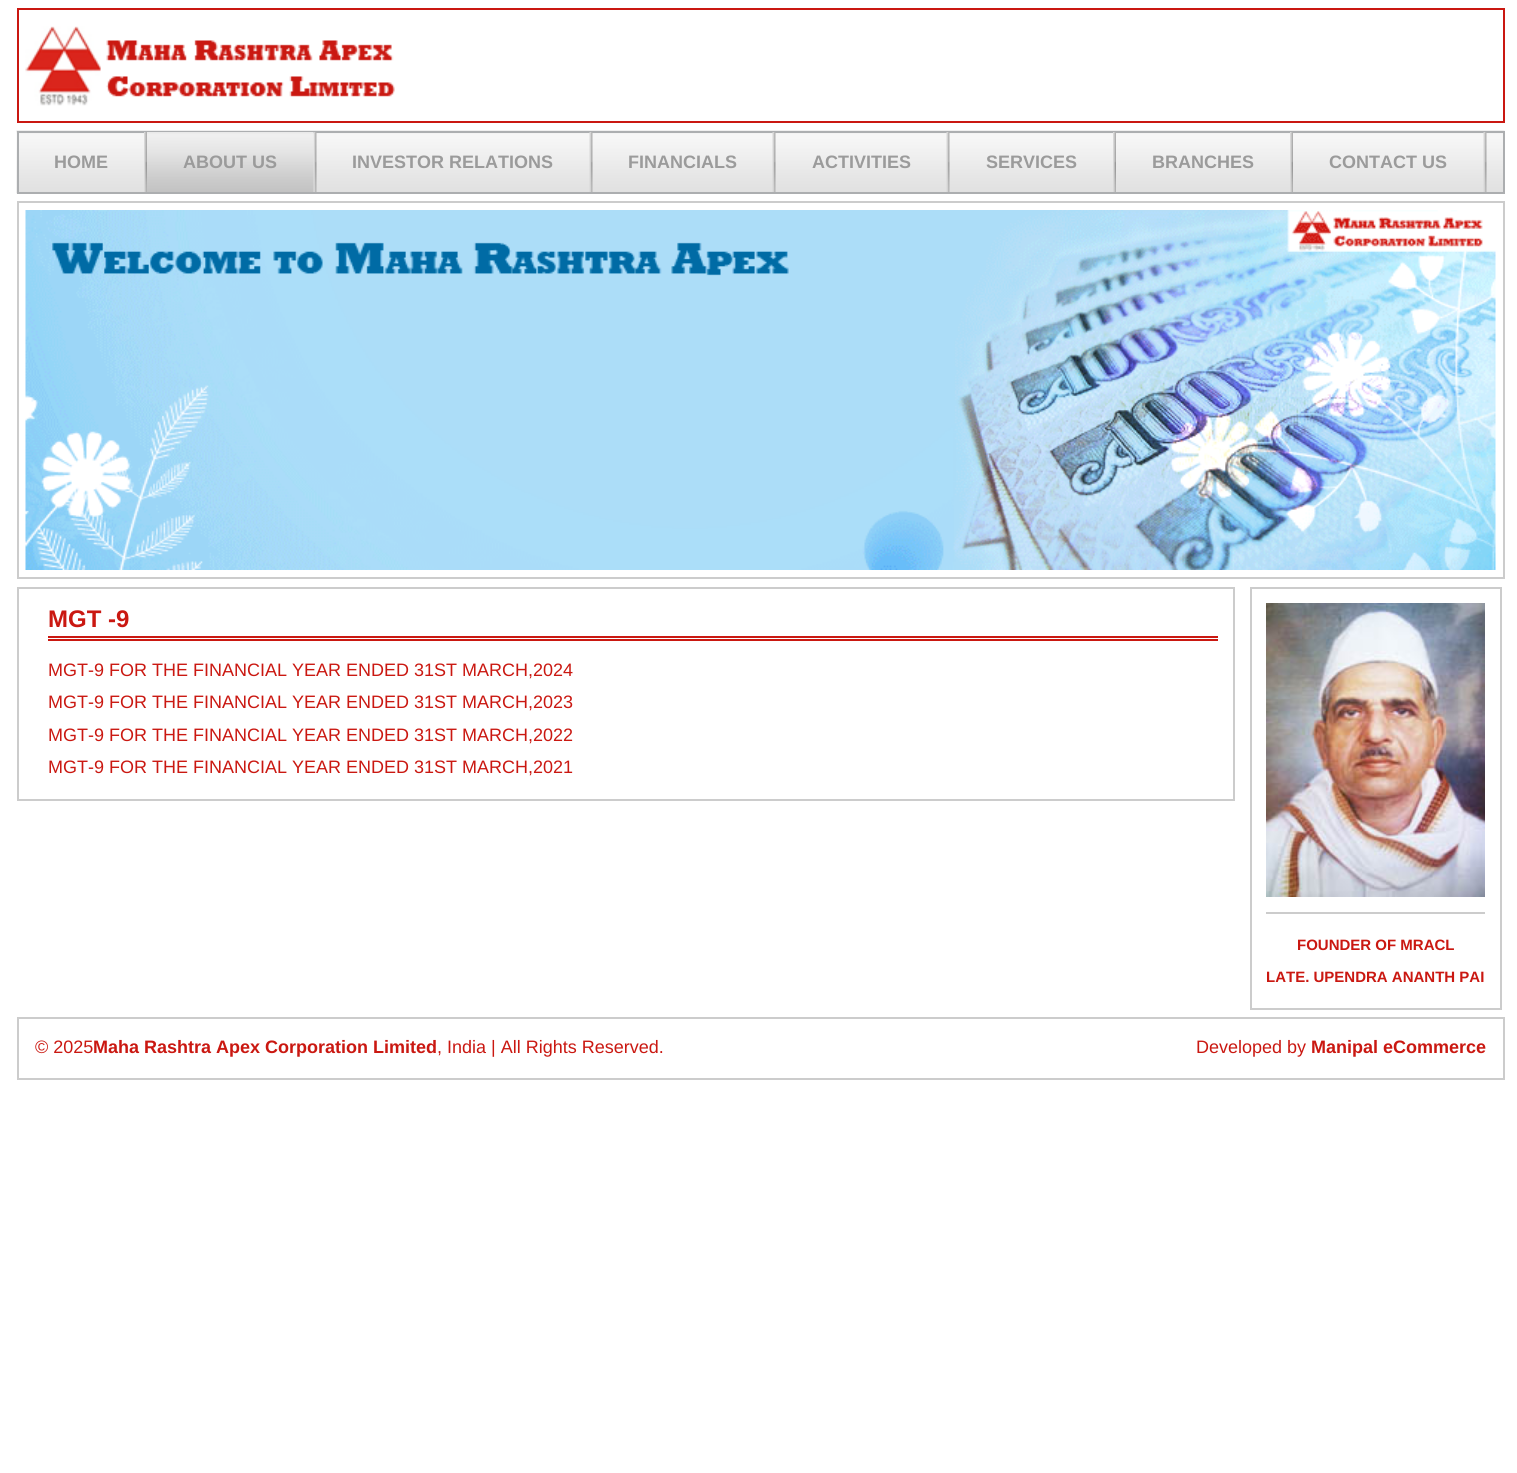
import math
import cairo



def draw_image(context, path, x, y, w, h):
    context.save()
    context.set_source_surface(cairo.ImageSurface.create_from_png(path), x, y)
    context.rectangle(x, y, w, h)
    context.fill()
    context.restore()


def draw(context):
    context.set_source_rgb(1, 1, 1)
    context.paint()
    draw_image(context, "images/1.png", 25, 26, 370, 80)
    context.rectangle(18, 9, 1486, 113)
    context.set_source_rgb(202 / 255, 24 / 255, 17 / 255)
    context.stroke()
    draw_image(context, "images/2.png", 16, 130, 1489, 64)
    context.rectangle(18, 132, 1486, 61)
    context.set_source_rgb(172 / 255, 174 / 255, 176 / 255)
    context.stroke()
    draw_image(context, "images/3.png", 144, 132, 3, 60)
    draw_image(context, "images/4.png", 313, 132, 4, 60)
    draw_image(context, "images/5.png", 147, 132, 167, 60)
    draw_image(context, "images/4.png", 589, 132, 4, 60)
    draw_image(context, "images/4.png", 772, 132, 4, 60)
    draw_image(context, "images/4.png", 946, 132, 4, 60)
    draw_image(context, "images/6.png", 1113, 132, 3, 60)
    draw_image(context, "images/6.png", 1290, 132, 3, 60)
    draw_image(context, "images/4.png", 1483, 132, 4, 60)
    context.rectangle(18, 202, 1486, 376)
    context.set_source_rgb(204 / 255, 204 / 255, 204 / 255)
    context.stroke()
    draw_image(context, "images/7.png", 25, 210, 1471, 360)
    context.rectangle(18, 588, 1216, 212)
    context.stroke()
    context.set_source_rgb(202 / 255, 24 / 255, 17 / 255)
    context.rectangle(48, 636, 1170, 2)
    context.fill()
    context.rectangle(48, 639, 1170, 2)
    context.fill()
    context.rectangle(1251, 588, 250, 421)
    context.set_source_rgb(204 / 255, 204 / 255, 204 / 255)
    context.stroke()
    draw_image(context, "images/8.png", 1266, 603, 219, 294)
    context.rectangle(1266, 912, 219, 2)
    context.fill()
    context.rectangle(18, 1018, 1486, 61)
    context.stroke()
    context.select_font_face("Liberation Sans", cairo.FontSlant.NORMAL, cairo.FontWeight.BOLD)
    context.set_font_size(18)
    context.set_source_rgb(155 / 255, 155 / 255, 155 / 255)
    context.move_to(54, 168)
    context.show_text("HOME")
    context.move_to(183, 168)
    context.show_text("ABOUT US")
    context.move_to(352, 168)
    context.show_text("INVESTOR RELATIONS")
    context.move_to(628, 168)
    context.show_text("FINANCIALS")
    context.move_to(812, 168)
    context.show_text("ACTIVITIES")
    context.move_to(986, 168)
    context.show_text("SERVICES")
    context.move_to(1152, 168)
    context.show_text("BRANCHES")
    context.move_to(1329, 168)
    context.show_text("CONTACT US")
    context.set_font_size(24)
    context.set_source_rgb(202 / 255, 24 / 255, 17 / 255)
    context.move_to(48, 627)
    context.show_text("MGT -9")
    context.select_font_face("Liberation Sans")
    context.set_font_size(18)
    context.move_to(48, 676)
    context.show_text("MGT-9 FOR THE FINANCIAL YEAR ENDED 31ST MARCH,2024")
    context.move_to(48, 708)
    context.show_text("MGT-9 FOR THE FINANCIAL YEAR ENDED 31ST MARCH,2023")
    context.move_to(48, 741)
    context.show_text("MGT-9 FOR THE FINANCIAL YEAR ENDED 31ST MARCH,2022")
    context.move_to(48, 773)
    context.show_text("MGT-9 FOR THE FINANCIAL YEAR ENDED 31ST MARCH,2021")
    context.select_font_face("Liberation Sans", cairo.FontSlant.NORMAL, cairo.FontWeight.BOLD)
    context.set_font_size(15)
    context.move_to(1297, 950)
    context.show_text("FOUNDER OF MRACL")
    context.move_to(1266, 982)
    context.show_text("LATE. UPENDRA ANANTH PAI")
    context.select_font_face("Liberation Sans")
    context.set_font_size(18)
    context.move_to(35, 1053)
    context.show_text("© 2025")
    context.select_font_face("Liberation Sans", cairo.FontSlant.NORMAL, cairo.FontWeight.BOLD)
    context.move_to(93, 1053)
    context.show_text("Maha Rashtra Apex Corporation Limited")
    context.select_font_face("Liberation Sans")
    context.move_to(437, 1053)
    context.show_text(", India | All Rights Reserved.")
    context.move_to(1196, 1053)
    context.show_text("Developed by")
    context.select_font_face("Liberation Sans", cairo.FontSlant.NORMAL, cairo.FontWeight.BOLD)
    context.move_to(1311, 1053)
    context.show_text("Manipal eCommerce")


surface = cairo.ImageSurface(cairo.Format.RGB24, 1517, 1473)
context = cairo.Context(surface)
options = cairo.FontOptions()
options.set_hint_metrics(cairo.HintMetrics.OFF)
options.set_hint_style(cairo.HintStyle.NONE)
context.set_font_options(options)
context.set_miter_limit(4)
draw(context)
surface.write_to_png("out.png")
